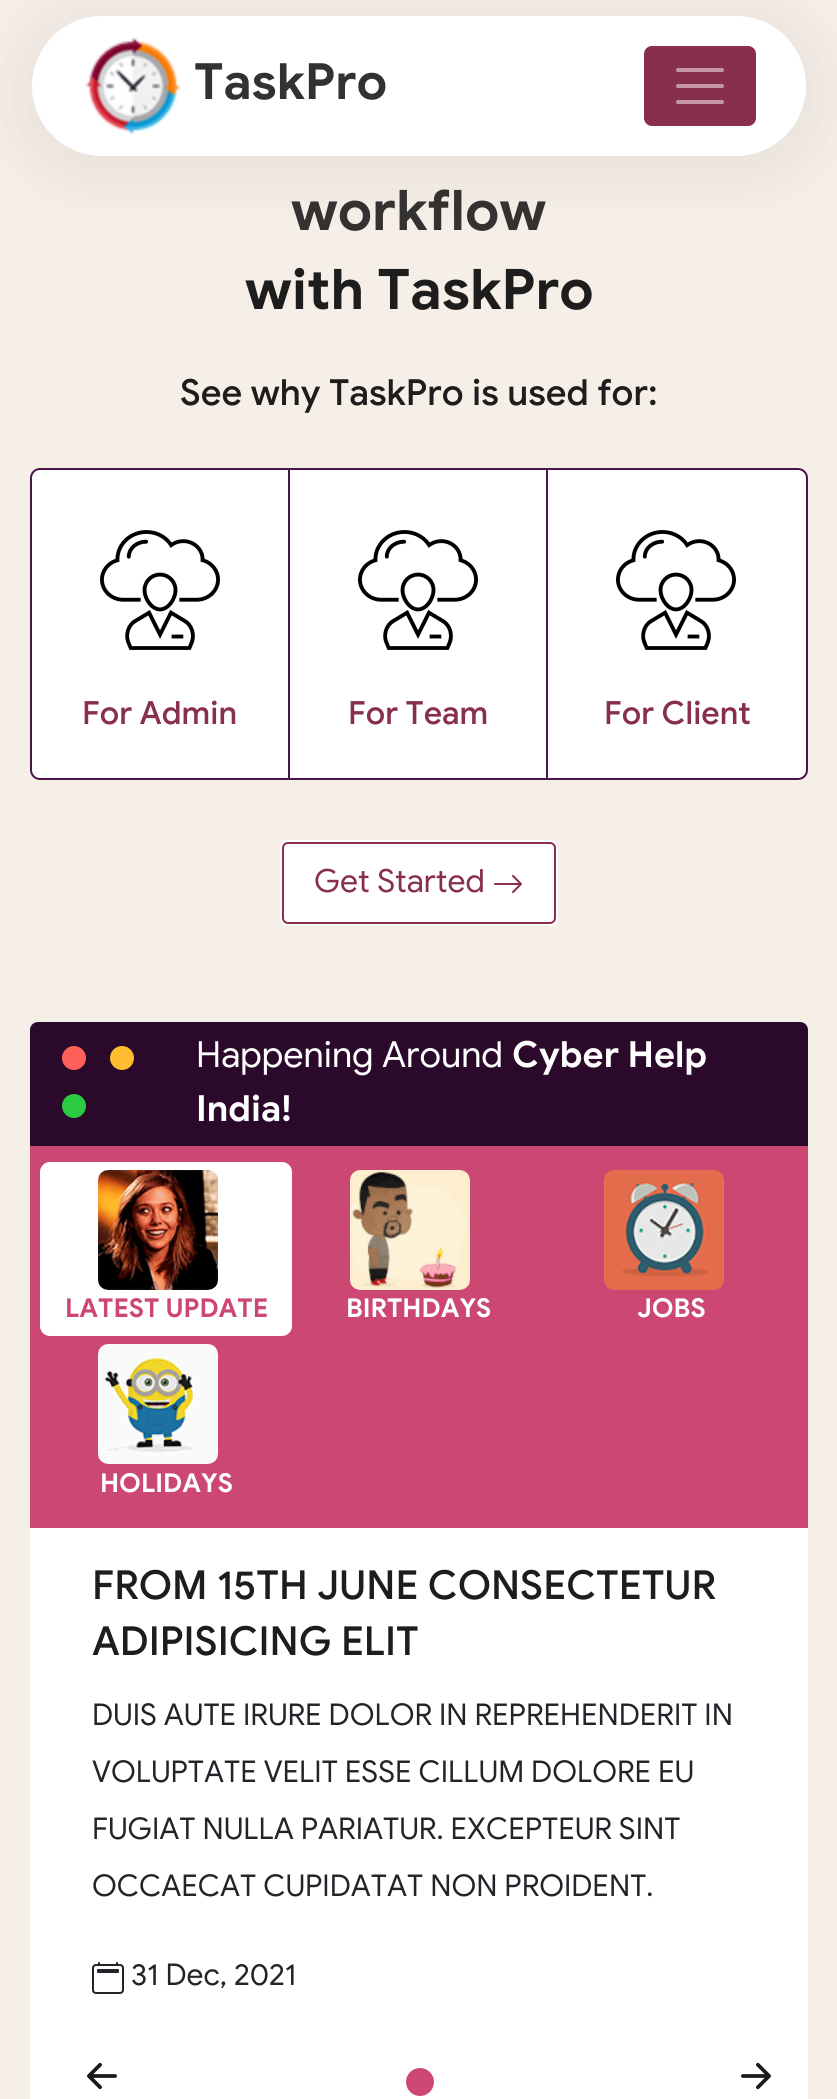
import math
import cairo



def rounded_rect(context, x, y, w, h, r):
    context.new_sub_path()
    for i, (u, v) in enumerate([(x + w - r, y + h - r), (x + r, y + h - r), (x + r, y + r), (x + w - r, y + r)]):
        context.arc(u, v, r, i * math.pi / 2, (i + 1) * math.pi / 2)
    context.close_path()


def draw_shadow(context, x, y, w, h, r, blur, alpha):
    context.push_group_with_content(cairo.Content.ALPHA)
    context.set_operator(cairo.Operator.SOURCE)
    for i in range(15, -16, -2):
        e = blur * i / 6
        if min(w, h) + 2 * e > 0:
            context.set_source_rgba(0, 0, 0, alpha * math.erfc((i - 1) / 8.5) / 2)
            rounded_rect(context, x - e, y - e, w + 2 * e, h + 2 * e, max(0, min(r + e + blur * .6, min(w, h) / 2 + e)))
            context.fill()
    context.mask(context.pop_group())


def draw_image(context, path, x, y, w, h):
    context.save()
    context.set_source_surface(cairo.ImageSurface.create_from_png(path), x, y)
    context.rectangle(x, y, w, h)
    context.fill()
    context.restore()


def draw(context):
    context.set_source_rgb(246 / 255, 239 / 255, 232 / 255)
    context.paint()
    context.set_source_rgb(0, 0, 0)
    draw_shadow(context, 32, 24, 774, 140, 70, 40, 0.08)
    context.set_source_rgb(1, 1, 1)
    rounded_rect(context, 32, 16, 774, 140, 70)
    context.fill()
    draw_image(context, "images/1.png", 85, 37, 96, 98)
    context.set_source_rgb(136 / 255, 47 / 255, 75 / 255)
    rounded_rect(context, 645, 47, 110, 78, 7)
    context.fill_preserve()
    context.stroke()
    context.new_path()
    context.move_to(678, 70)
    context.line_to(722, 70)
    context.move_to(678, 86)
    context.line_to(722, 86)
    context.move_to(678, 102)
    context.line_to(722, 102)
    context.set_source_rgb(196 / 255, 151 / 255, 165 / 255)
    context.set_line_width(4)
    context.set_line_cap(cairo.LineCap.ROUND)
    context.stroke()
    context.set_source_rgb(1, 1, 1)
    rounded_rect(context, 31, 469, 776, 310, 9)
    context.fill_preserve()
    context.set_source_rgb(74 / 255, 21 / 255, 75 / 255)
    context.set_line_width(2)
    context.set_line_cap(cairo.LineCap.BUTT)
    context.stroke()
    context.rectangle(288, 470, 2, 308)
    context.fill()
    draw_image(context, "images/2.png", 100, 530, 120, 120)
    context.rectangle(546, 470, 2, 308)
    context.fill()
    draw_image(context, "images/2.png", 358, 530, 120, 120)
    draw_image(context, "images/2.png", 616, 530, 120, 120)
    context.set_source_rgb(1, 1, 1)
    rounded_rect(context, 280, 840, 278, 86, 8)
    context.fill()
    rounded_rect(context, 283, 843, 272, 80, 5)
    context.set_source_rgb(136 / 255, 47 / 255, 75 / 255)
    context.stroke()
    draw_image(context, "images/3.png", 494, 875, 28, 18)
    context.set_source_rgb(43 / 255, 9 / 255, 43 / 255)
    context.new_path()
    context.move_to(38, 1022)
    context.line_to(800, 1022)
    context.curve_to(804.5, 1022, 808, 1025.5, 808, 1030)
    context.line_to(808, 1146)
    context.line_to(30, 1146)
    context.line_to(30, 1030)
    context.curve_to(30, 1025.5, 33.5, 1022, 38, 1022)
    context.close_path()
    context.fill()
    context.set_source_rgb(1, 96 / 255, 89 / 255)
    context.arc(74, 1058, 12, 0, 2 * math.pi)
    context.fill()
    context.set_source_rgb(1, 190 / 255, 47 / 255)
    context.arc(122, 1058, 12, 0, 2 * math.pi)
    context.fill()
    context.set_source_rgb(42 / 255, 202 / 255, 65 / 255)
    context.arc(74, 1106, 12, 0, 2 * math.pi)
    context.fill()
    context.set_source_rgb(204 / 255, 72 / 255, 115 / 255)
    context.rectangle(30, 1146, 778, 382)
    context.fill()
    context.set_source_rgb(1, 1, 1)
    rounded_rect(context, 40, 1162, 252, 174, 10)
    context.fill()
    draw_image(context, "images/4.png", 98, 1170, 120, 120)
    draw_image(context, "images/5.png", 350, 1170, 120, 120)
    draw_image(context, "images/6.png", 604, 1170, 120, 120)
    draw_image(context, "images/7.png", 98, 1344, 120, 120)
    context.rectangle(30, 1528, 778, 571)
    context.fill()
    draw_image(context, "images/8.png", 92, 1962, 32, 32)
    draw_image(context, "images/9.png", 87, 2062, 30, 28)
    context.set_source_rgb(204 / 255, 72 / 255, 115 / 255)
    context.arc(420, 2082, 14, 0, 2 * math.pi)
    context.fill()
    draw_image(context, "images/10.png", 741, 2062, 30, 28)
    context.select_font_face("Google Sans", cairo.FontSlant.NORMAL, cairo.FontWeight.BOLD)
    context.set_font_size(50)
    context.set_source_rgb(51 / 255, 50 / 255, 49 / 255)
    context.move_to(194, 99)
    context.show_text("TaskPro")
    context.set_font_size(56)
    context.move_to(291, 230)
    context.show_text("workflow")
    context.set_source_rgb(29 / 255, 29 / 255, 29 / 255)
    context.move_to(245, 309)
    context.show_text("with TaskPro")
    context.select_font_face("Google Sans Medium")
    context.set_font_size(36)
    context.move_to(180, 405)
    context.show_text("See why TaskPro is used for:")
    context.set_font_size(32)
    context.set_source_rgb(136 / 255, 47 / 255, 75 / 255)
    context.move_to(82, 724)
    context.show_text("For Admin")
    context.move_to(348, 724)
    context.show_text("For Team")
    context.move_to(604, 724)
    context.show_text("For Client")
    context.select_font_face("Google Sans")
    context.move_to(314, 892)
    context.show_text("Get Started")
    context.set_font_size(36)
    context.set_source_rgb(1, 1, 1)
    context.move_to(196, 1067)
    context.show_text("Happening Around")
    context.select_font_face("Google Sans", cairo.FontSlant.NORMAL, cairo.FontWeight.BOLD)
    context.move_to(512, 1067)
    context.show_text("Cyber Help")
    context.move_to(196, 1121)
    context.show_text("India!")
    context.set_font_size(26)
    context.set_source_rgb(204 / 255, 72 / 255, 115 / 255)
    context.move_to(65, 1317)
    context.show_text("LATEST UPDATE")
    context.set_source_rgb(1, 1, 1)
    context.move_to(346, 1317)
    context.show_text("BIRTHDAYS")
    context.move_to(637, 1317)
    context.show_text("JOBS")
    context.move_to(100, 1492)
    context.show_text("HOLIDAYS")
    context.select_font_face("Google Sans Medium")
    context.set_font_size(40)
    context.set_source_rgb(29 / 255, 29 / 255, 29 / 255)
    context.move_to(92, 1599)
    context.show_text("FROM 15TH JUNE CONSECTETUR")
    context.move_to(92, 1655)
    context.show_text("ADIPISICING ELIT")
    context.select_font_face("Google Sans")
    context.set_font_size(30)
    context.set_source_rgb(33 / 255, 37 / 255, 41 / 255)
    context.move_to(92, 1725)
    context.show_text("DUIS AUTE IRURE DOLOR IN REPREHENDERIT IN")
    context.move_to(92, 1782)
    context.show_text("VOLUPTATE VELIT ESSE CILLUM DOLORE EU")
    context.move_to(92, 1839)
    context.show_text("FUGIAT NULLA PARIATUR. EXCEPTEUR SINT")
    context.move_to(92, 1896)
    context.show_text("OCCAECAT CUPIDATAT NON PROIDENT.")
    context.move_to(131, 1985)
    context.show_text("31 Dec, 2021")


surface = cairo.ImageSurface(cairo.Format.RGB24, 837, 2099)
context = cairo.Context(surface)
options = cairo.FontOptions()
options.set_hint_metrics(cairo.HintMetrics.OFF)
options.set_hint_style(cairo.HintStyle.NONE)
context.set_font_options(options)
context.set_miter_limit(4)
draw(context)
surface.write_to_png("out.png")
